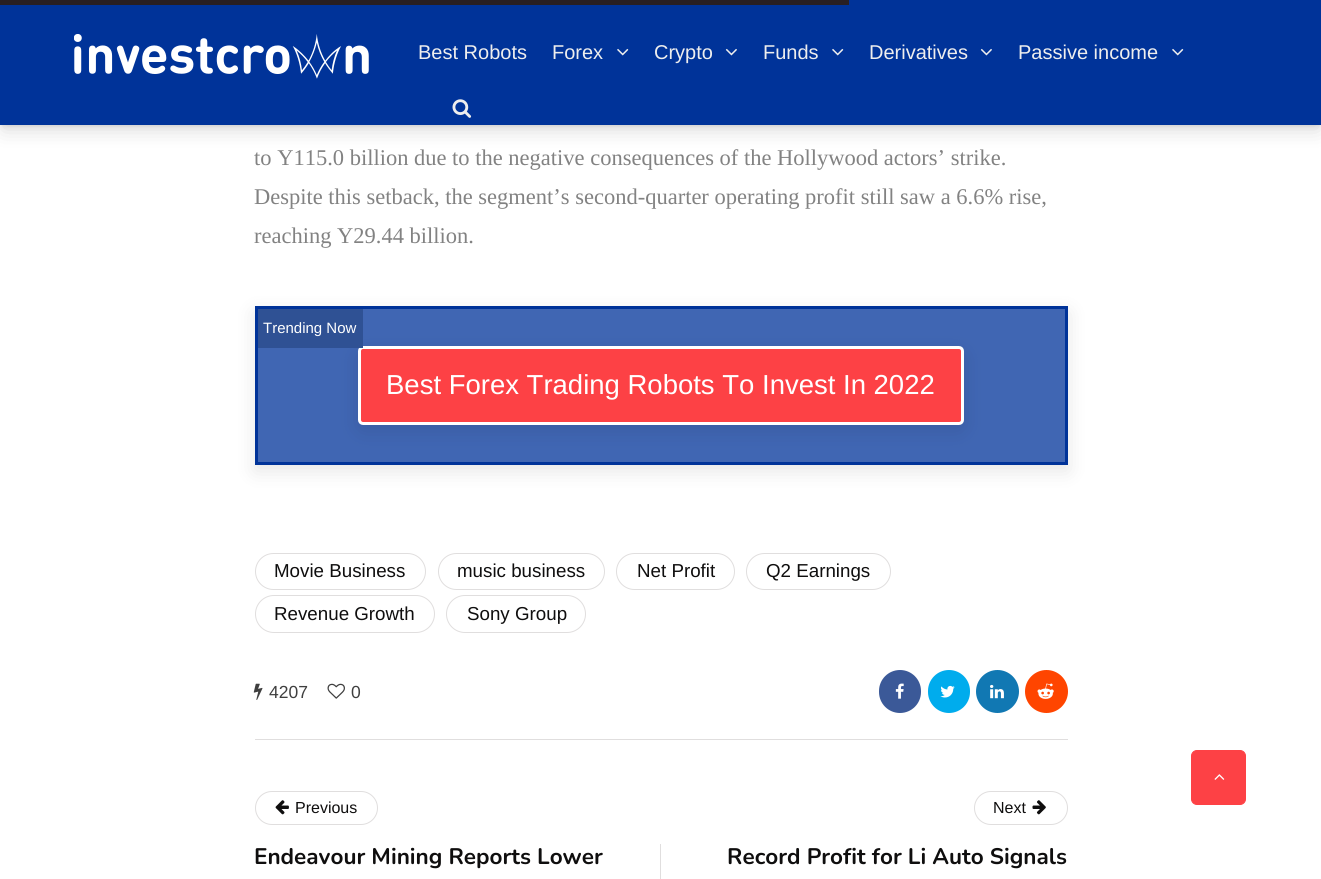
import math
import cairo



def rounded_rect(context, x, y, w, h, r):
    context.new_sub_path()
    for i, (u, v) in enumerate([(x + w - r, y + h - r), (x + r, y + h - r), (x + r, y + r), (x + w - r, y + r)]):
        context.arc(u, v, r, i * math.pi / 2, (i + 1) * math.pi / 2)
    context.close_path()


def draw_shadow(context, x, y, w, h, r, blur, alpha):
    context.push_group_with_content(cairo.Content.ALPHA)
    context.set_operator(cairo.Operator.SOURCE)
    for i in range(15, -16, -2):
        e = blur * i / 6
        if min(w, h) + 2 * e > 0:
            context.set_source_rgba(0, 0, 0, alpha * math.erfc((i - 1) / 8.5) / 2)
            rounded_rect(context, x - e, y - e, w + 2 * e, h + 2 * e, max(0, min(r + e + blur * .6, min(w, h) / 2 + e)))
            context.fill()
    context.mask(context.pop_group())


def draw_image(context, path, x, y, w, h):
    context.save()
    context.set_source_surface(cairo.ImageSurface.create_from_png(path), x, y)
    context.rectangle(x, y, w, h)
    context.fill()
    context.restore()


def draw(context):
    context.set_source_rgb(1, 1, 1)
    context.paint()
    context.set_source_rgb(0, 0, 0)
    draw_shadow(context, 3, 9, 1316, 120, 0, 10.5, 0.15)
    draw_shadow(context, 3, 5, 1316, 120, 0, 3, 0.15)
    context.set_source_rgb(0, 51 / 255, 153 / 255)
    context.rectangle(0, 0, 1321, 125)
    context.fill()
    context.set_source_rgb(40 / 255, 31 / 255, 34 / 255)
    context.rectangle(0, 0, 849, 5)
    context.fill()
    draw_image(context, "images/1.png", 74, 34, 295, 45)
    draw_image(context, "images/2.png", 617, 48, 12, 8)
    draw_image(context, "images/3.png", 725, 48, 12, 8)
    draw_image(context, "images/2.png", 832, 48, 12, 8)
    draw_image(context, "images/3.png", 980, 48, 12, 8)
    draw_image(context, "images/2.png", 1172, 48, 12, 8)
    draw_image(context, "images/4.png", 452, 99, 20, 19)
    context.save()
    context.set_fill_rule(cairo.FillRule.EVEN_ODD)
    context.new_path()
    context.move_to(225, 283)
    context.line_to(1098, 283)
    context.line_to(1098, 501)
    context.line_to(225, 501)
    context.close_path()
    context.move_to(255, 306)
    context.line_to(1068, 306)
    context.line_to(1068, 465)
    context.line_to(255, 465)
    context.close_path()
    context.clip()
    context.set_source_rgb(0, 0, 0)
    draw_shadow(context, 255, 313, 813, 158, 0, 9.5, 0.1)
    context.restore()
    context.set_source_rgba(0, 51 / 255, 153 / 255, 0.75)
    context.rectangle(256.5, 307.5, 810, 156)
    context.fill_preserve()
    context.set_source_rgb(0, 51 / 255, 153 / 255)
    context.set_line_width(3)
    context.stroke()
    context.set_source_rgb(0, 0, 0)
    draw_shadow(context, 358, 353, 606, 78, 5, 9.5, 0.1)
    context.set_source_rgb(253 / 255, 65 / 255, 69 / 255)
    rounded_rect(context, 359.5, 347.5, 603, 76, 3.5)
    context.fill_preserve()
    context.set_source_rgb(1, 1, 1)
    context.stroke()
    context.set_source_rgb(47 / 255, 81 / 255, 148 / 255)
    context.rectangle(258, 309, 105, 39)
    context.fill()
    rounded_rect(context, 255.5, 553.5, 170, 36, 18)
    context.set_source_rgb(224 / 255, 222 / 255, 222 / 255)
    context.set_line_width(1)
    context.stroke()
    rounded_rect(context, 438.5, 553.5, 166, 36, 18)
    context.stroke()
    rounded_rect(context, 616.5, 553.5, 118, 36, 18)
    context.stroke()
    rounded_rect(context, 746.5, 553.5, 144, 36, 18)
    context.stroke()
    rounded_rect(context, 255.5, 595.5, 179, 37, 18.5)
    context.stroke()
    rounded_rect(context, 446.5, 595.5, 139, 37, 18.5)
    context.stroke()
    context.rectangle(255, 739, 813, 1)
    context.fill()
    draw_image(context, "images/5.png", 253, 683, 10, 17)
    draw_image(context, "images/6.png", 327, 683, 18, 16)
    context.set_source_rgb(59 / 255, 89 / 255, 152 / 255)
    rounded_rect(context, 879, 670, 42, 43, 21)
    context.fill()
    draw_image(context, "images/7.png", 895, 683, 9, 16)
    context.set_source_rgb(0, 172 / 255, 237 / 255)
    rounded_rect(context, 928, 670, 42, 43, 21)
    context.fill()
    draw_image(context, "images/8.png", 940, 685, 15, 13)
    context.set_source_rgb(17 / 255, 120 / 255, 179 / 255)
    context.arc(997.5, 691.5, 21.5, 0, 2 * math.pi)
    context.fill()
    draw_image(context, "images/9.png", 990, 684, 14, 15)
    context.set_source_rgb(1, 69 / 255, 0)
    context.arc(1046.5, 691.5, 21.5, 0, 2 * math.pi)
    context.fill()
    draw_image(context, "images/10.png", 1037, 683, 17, 16)
    rounded_rect(context, 255.5, 791.5, 122, 33, 16.5)
    context.set_source_rgb(224 / 255, 222 / 255, 222 / 255)
    context.stroke()
    draw_image(context, "images/11.png", 275, 800, 14, 15)
    context.rectangle(660, 844, 1, 35)
    context.fill()
    rounded_rect(context, 974.5, 791.5, 93, 33, 16.5)
    context.stroke()
    draw_image(context, "images/12.png", 1032, 800, 14, 15)
    context.set_source_rgb(253 / 255, 65 / 255, 69 / 255)
    rounded_rect(context, 1191.5, 750.5, 54, 54, 5.5)
    context.fill_preserve()
    context.stroke()
    draw_image(context, "images/13.png", 1214, 774, 11, 6)
    context.select_font_face("Liberation Sans")
    context.set_font_size(20)
    context.set_source_rgb(238 / 255, 238 / 255, 238 / 255)
    context.move_to(418, 59)
    context.show_text("Best Robots")
    context.move_to(552, 59)
    context.show_text("Forex")
    context.move_to(654, 59)
    context.show_text("Crypto")
    context.move_to(763, 59)
    context.show_text("Funds")
    context.move_to(869, 59)
    context.show_text("Derivatives")
    context.move_to(1018, 59)
    context.show_text("Passive income")
    context.select_font_face("Liberation Serif")
    context.set_font_size(22.5)
    context.set_source_rgb(130 / 255, 130 / 255, 130 / 255)
    context.move_to(254, 165)
    context.show_text("to Y115.0 billion due to the negative consequences of the Hollywood actors’ strike.")
    context.move_to(254, 204)
    context.show_text("Despite this setback, the segment’s second-quarter operating profit still saw a 6.6% rise,")
    context.move_to(254, 243)
    context.show_text("reaching Y29.44 billion.")
    context.select_font_face("Liberation Sans")
    context.set_font_size(15)
    context.set_source_rgb(1, 1, 1)
    context.move_to(263, 333)
    context.show_text("Trending Now")
    context.set_font_size(27.5)
    context.move_to(386, 394)
    context.show_text("Best Forex Trading Robots To Invest In 2022")
    context.set_font_size(18.75)
    context.set_source_rgb(15 / 255, 14 / 255, 14 / 255)
    context.move_to(274, 577)
    context.show_text("Movie Business")
    context.move_to(457, 577)
    context.show_text("music business")
    context.move_to(637, 577)
    context.show_text("Net Profit")
    context.move_to(766, 577)
    context.show_text("Q2 Earnings")
    context.move_to(274, 620)
    context.show_text("Revenue Growth")
    context.move_to(467, 620)
    context.show_text("Sony Group")
    context.set_font_size(17.5)
    context.set_source_rgb(63 / 255, 63 / 255, 63 / 255)
    context.move_to(269, 698)
    context.show_text("4207")
    context.move_to(351, 698)
    context.show_text("0")
    context.set_font_size(16)
    context.set_source_rgb(15 / 255, 14 / 255, 14 / 255)
    context.move_to(295, 813)
    context.show_text("Previous")
    context.select_font_face("Nunito", cairo.FontSlant.NORMAL, cairo.FontWeight.BOLD)
    context.set_font_size(22.5)
    context.move_to(254, 864)
    context.show_text("Endeavour Mining Reports Lower")
    context.select_font_face("Liberation Sans")
    context.set_font_size(16)
    context.move_to(993, 813)
    context.show_text("Next")
    context.select_font_face("Nunito", cairo.FontSlant.NORMAL, cairo.FontWeight.BOLD)
    context.set_font_size(22.5)
    context.move_to(727, 864)
    context.show_text("Record Profit for Li Auto Signals")


surface = cairo.ImageSurface(cairo.Format.RGB24, 1321, 879)
context = cairo.Context(surface)
options = cairo.FontOptions()
options.set_hint_metrics(cairo.HintMetrics.OFF)
options.set_hint_style(cairo.HintStyle.NONE)
context.set_font_options(options)
context.set_miter_limit(4)
draw(context)
surface.write_to_png("out.png")
